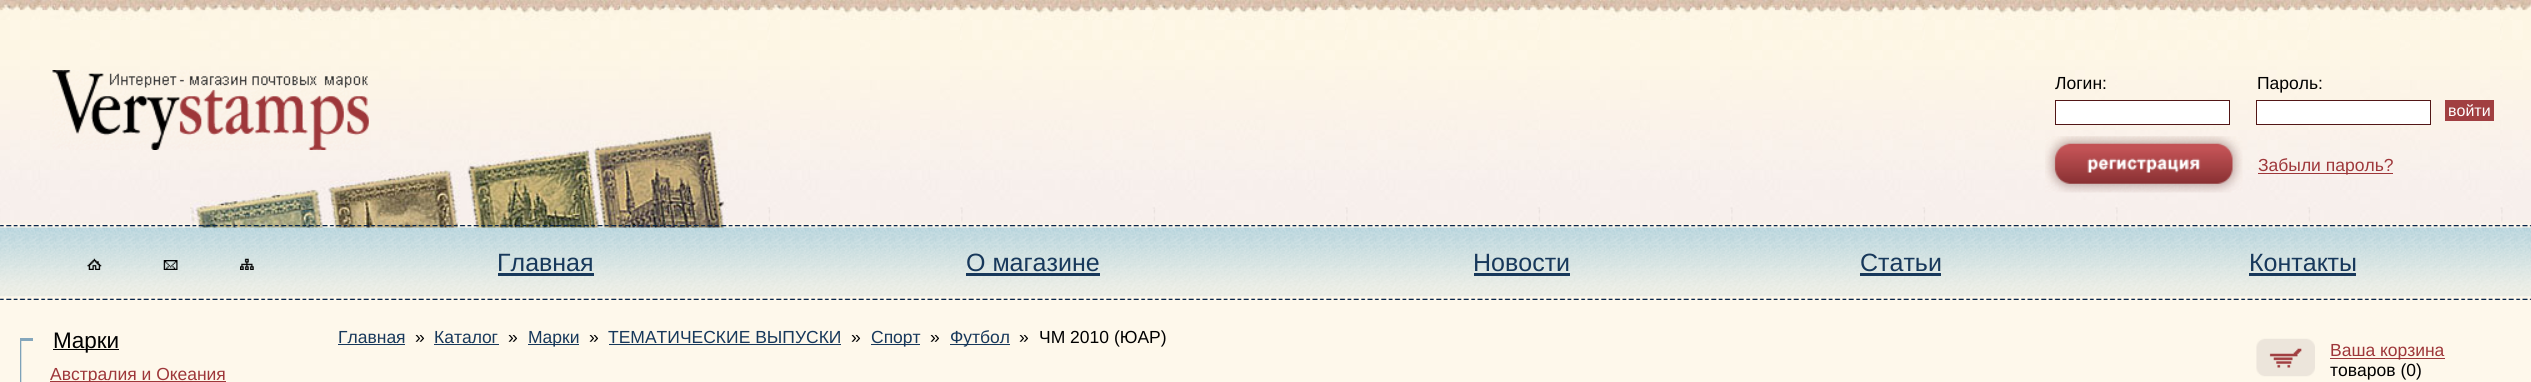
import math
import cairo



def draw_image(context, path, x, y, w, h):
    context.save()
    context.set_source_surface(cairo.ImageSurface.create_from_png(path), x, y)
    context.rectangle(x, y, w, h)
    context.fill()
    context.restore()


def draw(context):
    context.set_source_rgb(254 / 255, 248 / 255, 235 / 255)
    context.paint()
    draw_image(context, "images/1.png", 0, 0, 2531, 228)
    draw_image(context, "images/2.png", 190, 0, 538, 228)
    draw_image(context, "images/3.png", 52, 70, 317, 80)
    context.set_source_rgb(1, 1, 1)
    context.rectangle(2055.5, 100.5, 174, 24)
    context.fill_preserve()
    context.set_source_rgb(82 / 255, 22 / 255, 22 / 255)
    context.set_line_width(1)
    context.stroke()
    context.set_source_rgb(1, 1, 1)
    context.rectangle(2256.5, 100.5, 174, 24)
    context.fill_preserve()
    context.set_source_rgb(82 / 255, 22 / 255, 22 / 255)
    context.stroke()
    context.set_source_rgb(161 / 255, 63 / 255, 65 / 255)
    context.rectangle(2445, 100, 49, 21)
    context.fill()
    draw_image(context, "images/4.png", 2045, 136, 198, 57)
    context.set_source_rgb(158 / 255, 55 / 255, 58 / 255)
    context.rectangle(2258, 173, 135, 1)
    context.fill()
    draw_image(context, "images/5.png", 0, 225, 2531, 75)
    draw_image(context, "images/6.png", 87, 258, 15, 12)
    draw_image(context, "images/7.png", 163, 260, 15, 10)
    draw_image(context, "images/8.png", 240, 258, 14, 12)
    context.set_source_rgb(23 / 255, 56 / 255, 91 / 255)
    context.rectangle(498, 273, 96, 3)
    context.fill()
    context.rectangle(966, 273, 134, 3)
    context.fill()
    context.rectangle(1474, 273, 96, 3)
    context.fill()
    context.rectangle(1860, 273, 81, 3)
    context.fill()
    context.rectangle(2249, 273, 107, 3)
    context.fill()
    context.set_source_rgb(0, 0, 0)
    context.rectangle(53, 349, 66, 1)
    context.fill()
    draw_image(context, "images/9.png", 20, 341, 2, 41)
    context.set_source_rgb(133 / 255, 167 / 255, 188 / 255)
    context.rectangle(20, 338, 13, 3)
    context.fill()
    context.set_source_rgb(158 / 255, 55 / 255, 58 / 255)
    context.rectangle(50, 381, 176, 1)
    context.fill()
    context.set_source_rgb(23 / 255, 56 / 255, 91 / 255)
    context.rectangle(338, 344, 67, 1)
    context.fill()
    context.rectangle(434, 344, 65, 1)
    context.fill()
    context.rectangle(528, 344, 51, 1)
    context.fill()
    context.rectangle(609, 344, 232, 1)
    context.fill()
    context.rectangle(871, 344, 49, 1)
    context.fill()
    context.rectangle(950, 344, 60, 1)
    context.fill()
    draw_image(context, "images/10.png", 2256, 338, 59, 39)
    context.set_source_rgb(158 / 255, 55 / 255, 58 / 255)
    context.rectangle(2330, 358, 115, 1)
    context.fill()
    context.select_font_face("Liberation Sans")
    context.set_font_size(17.5)
    context.set_source_rgb(0, 0, 0)
    context.move_to(2055, 89)
    context.show_text("Логин:")
    context.move_to(2257, 89)
    context.show_text("Пароль:")
    context.set_font_size(16)
    context.set_source_rgb(1, 1, 1)
    context.move_to(2448, 116)
    context.show_text("войти")
    context.set_font_size(17.5)
    context.set_source_rgb(158 / 255, 55 / 255, 58 / 255)
    context.move_to(2258, 171)
    context.show_text("Забыли пароль?")
    context.set_font_size(25)
    context.set_source_rgb(23 / 255, 56 / 255, 91 / 255)
    context.move_to(497, 271)
    context.show_text("Главная")
    context.move_to(966, 271)
    context.show_text("О магазине")
    context.move_to(1473, 271)
    context.show_text("Новости")
    context.move_to(1860, 271)
    context.show_text("Статьи")
    context.move_to(2249, 271)
    context.show_text("Контакты")
    context.set_font_size(22.5)
    context.set_source_rgb(0, 0, 0)
    context.move_to(53, 348)
    context.show_text("Марки")
    context.set_font_size(17.5)
    context.set_source_rgb(158 / 255, 55 / 255, 58 / 255)
    context.move_to(50, 380)
    context.show_text("Австралия и Океания")
    context.set_source_rgb(23 / 255, 56 / 255, 91 / 255)
    context.move_to(338, 343)
    context.show_text("Главная")
    context.set_source_rgb(0, 0, 0)
    context.move_to(415, 343)
    context.show_text("»")
    context.set_source_rgb(23 / 255, 56 / 255, 91 / 255)
    context.move_to(434, 343)
    context.show_text("Каталог")
    context.set_source_rgb(0, 0, 0)
    context.move_to(508, 343)
    context.show_text("»")
    context.set_source_rgb(23 / 255, 56 / 255, 91 / 255)
    context.move_to(528, 343)
    context.show_text("Марки")
    context.set_source_rgb(0, 0, 0)
    context.move_to(589, 343)
    context.show_text("»")
    context.set_source_rgb(23 / 255, 56 / 255, 91 / 255)
    context.move_to(608, 343)
    context.show_text("ТЕМАТИЧЕСКИЕ ВЫПУСКИ")
    context.set_source_rgb(0, 0, 0)
    context.move_to(851, 343)
    context.show_text("»")
    context.set_source_rgb(23 / 255, 56 / 255, 91 / 255)
    context.move_to(871, 343)
    context.show_text("Спорт")
    context.set_source_rgb(0, 0, 0)
    context.move_to(930, 343)
    context.show_text("»")
    context.set_source_rgb(23 / 255, 56 / 255, 91 / 255)
    context.move_to(950, 343)
    context.show_text("Футбол")
    context.set_source_rgb(0, 0, 0)
    context.move_to(1019, 343)
    context.show_text("»")
    context.move_to(1039, 343)
    context.show_text("ЧМ 2010 (ЮАР)")
    context.set_source_rgb(158 / 255, 55 / 255, 58 / 255)
    context.move_to(2330, 356)
    context.show_text("Ваша корзина")
    context.set_source_rgb(0, 0, 0)
    context.move_to(2330, 376)
    context.show_text("товаров (0)")


surface = cairo.ImageSurface(cairo.Format.RGB24, 2531, 382)
context = cairo.Context(surface)
options = cairo.FontOptions()
options.set_hint_metrics(cairo.HintMetrics.OFF)
options.set_hint_style(cairo.HintStyle.NONE)
context.set_font_options(options)
context.set_miter_limit(4)
draw(context)
surface.write_to_png("out.png")
